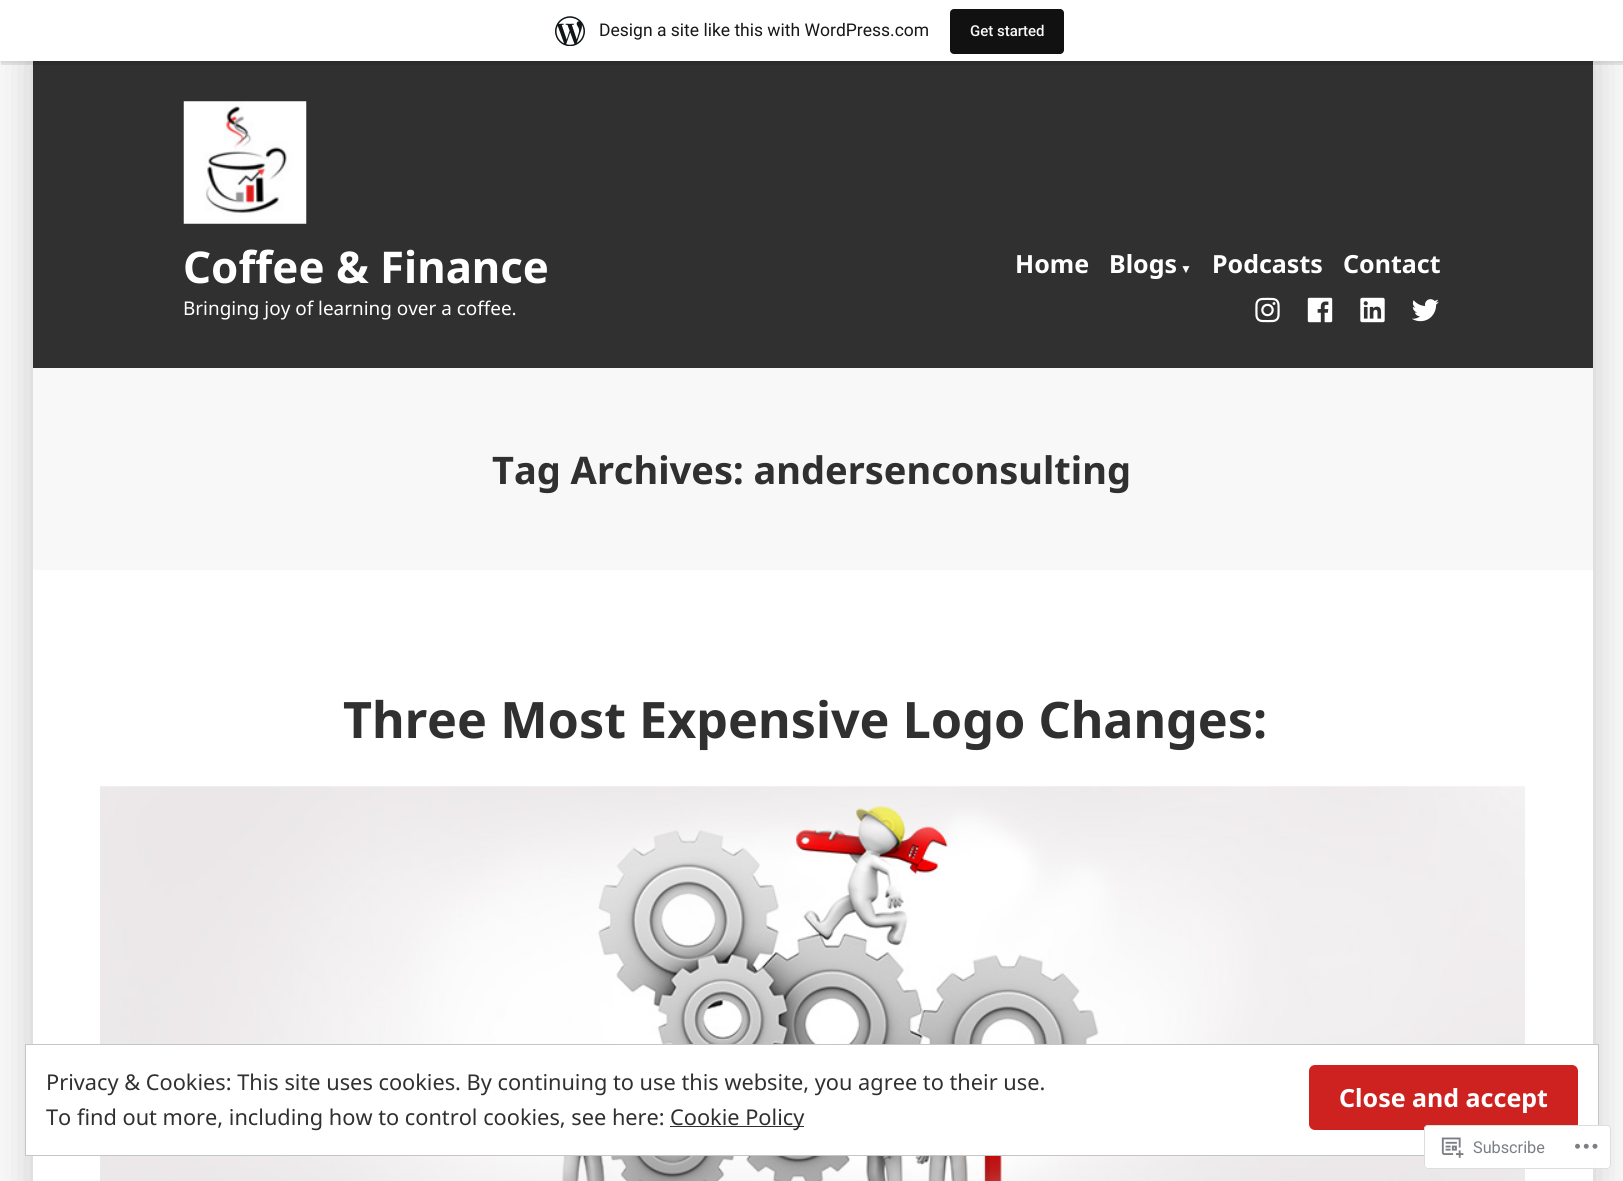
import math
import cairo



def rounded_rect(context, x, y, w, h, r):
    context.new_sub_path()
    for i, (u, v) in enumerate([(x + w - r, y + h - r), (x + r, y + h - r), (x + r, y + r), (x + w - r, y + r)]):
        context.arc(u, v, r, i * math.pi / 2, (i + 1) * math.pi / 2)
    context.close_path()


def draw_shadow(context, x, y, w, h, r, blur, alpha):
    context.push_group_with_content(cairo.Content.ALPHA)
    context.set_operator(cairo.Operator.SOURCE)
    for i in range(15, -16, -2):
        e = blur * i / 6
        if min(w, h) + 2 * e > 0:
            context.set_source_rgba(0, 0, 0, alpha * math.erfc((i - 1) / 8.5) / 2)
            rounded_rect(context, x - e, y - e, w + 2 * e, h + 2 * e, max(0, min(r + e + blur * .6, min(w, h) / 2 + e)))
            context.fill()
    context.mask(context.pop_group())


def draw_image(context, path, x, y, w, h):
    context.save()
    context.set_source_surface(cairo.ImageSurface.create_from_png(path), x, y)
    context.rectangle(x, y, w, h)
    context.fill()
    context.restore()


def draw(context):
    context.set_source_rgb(248 / 255, 248 / 255, 248 / 255)
    context.paint()
    context.set_source_rgb(0, 0, 0)
    draw_shadow(context, 33, 61, 1560, 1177, 0, 19, 0.2)
    context.set_source_rgb(48 / 255, 48 / 255, 48 / 255)
    context.rectangle(33, 61, 1560, 307)
    context.fill()
    context.set_source_rgb(0, 0, 0)
    draw_shadow(context, 0, 1, 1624, 62, 0, 1, 0.05)
    context.set_source_rgba(0, 0, 0, 0.08)
    context.new_path()
    context.move_to(1, 61)
    context.line_to(1, 65)
    context.line_to(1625, 65)
    context.line_to(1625, 4)
    context.line_to(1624, 4)
    context.line_to(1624, 61)
    context.close_path()
    context.fill()
    context.set_source_rgb(1, 1, 1)
    context.rectangle(0, 0, 1623, 61)
    context.fill()
    draw_image(context, "images/1.png", 555, 16, 30, 30)
    context.set_source_rgb(17 / 255, 17 / 255, 17 / 255)
    rounded_rect(context, 950, 9, 114, 45, 4)
    context.fill()
    context.set_source_rgb(1, 1, 1)
    context.rectangle(33, 570, 1560, 611)
    context.fill()
    draw_image(context, "images/2.png", 183, 101, 124, 123)
    draw_image(context, "images/3.png", 1255, 297, 25, 26)
    draw_image(context, "images/4.png", 1307, 297, 26, 26)
    draw_image(context, "images/5.png", 1360, 297, 25, 26)
    draw_image(context, "images/6.png", 1412, 299, 27, 23)
    context.set_source_rgb(248 / 255, 248 / 255, 248 / 255)
    context.rectangle(33, 368, 1560, 202)
    context.fill()
    draw_image(context, "images/7.png", 100, 786, 1425, 395)
    context.set_source_rgb(1, 1, 1)
    context.rectangle(25.5, 1044.5, 1573, 111)
    context.fill_preserve()
    context.set_source_rgb(197 / 255, 197 / 255, 197 / 255)
    context.set_line_width(1)
    context.stroke()
    context.set_source_rgb(205 / 255, 34 / 255, 32 / 255)
    rounded_rect(context, 1309, 1065, 269, 65, 6)
    context.fill()
    context.set_source_rgb(48 / 255, 48 / 255, 48 / 255)
    context.rectangle(670, 1126, 134, 1)
    context.fill()
    context.set_source_rgba(1, 1, 1, 0.98)
    rounded_rect(context, 1424, 1125, 187, 44, 4)
    context.fill()
    rounded_rect(context, 1424.5, 1125.5, 186, 43, 3.5)
    context.set_source_rgba(220 / 255, 220 / 255, 222 / 255, 0.98)
    context.stroke()
    draw_image(context, "images/8.png", 1441, 1137, 23, 21)
    draw_image(context, "images/9.png", 1575, 1143, 23, 6)
    context.select_font_face("Roboto")
    context.set_font_size(17.5)
    context.set_source_rgb(23 / 255, 23 / 255, 23 / 255)
    context.move_to(599, 36)
    context.show_text("Design a site like this with WordPress.com")
    context.select_font_face("Roboto Medium")
    context.set_font_size(15)
    context.set_source_rgb(246 / 255, 247 / 255, 247 / 255)
    context.move_to(970, 36)
    context.show_text("Get started")
    context.select_font_face("Noto Sans", cairo.FontSlant.NORMAL, cairo.FontWeight.BOLD)
    context.set_font_size(43.75)
    context.set_source_rgb(1, 1, 1)
    context.move_to(183, 283)
    context.show_text("Coffee & Finance")
    context.set_font_size(25)
    context.move_to(1015, 273)
    context.show_text("Home")
    context.move_to(1109, 273)
    context.show_text("Blogs")
    context.select_font_face("Liberation Sans", cairo.FontSlant.NORMAL, cairo.FontWeight.BOLD)
    context.set_font_size(12)
    context.move_to(1180, 273)
    context.show_text("▼")
    context.select_font_face("Noto Sans", cairo.FontSlant.NORMAL, cairo.FontWeight.BOLD)
    context.set_font_size(25)
    context.move_to(1212, 273)
    context.show_text("Podcasts")
    context.move_to(1343, 273)
    context.show_text("Contact")
    context.select_font_face("Noto Sans")
    context.set_font_size(18.9)
    context.move_to(183, 315)
    context.show_text("Bringing joy of learning over a coffee.")
    context.select_font_face("Noto Sans", cairo.FontSlant.NORMAL, cairo.FontWeight.BOLD)
    context.set_font_size(38)
    context.set_source_rgb(48 / 255, 48 / 255, 48 / 255)
    context.move_to(492, 484)
    context.show_text("Tag Archives: andersenconsulting")
    context.set_font_size(50.25)
    context.move_to(343, 738)
    context.show_text("Three Most Expensive Logo Changes:")
    context.select_font_face("Noto Sans")
    context.set_font_size(21.75)
    context.move_to(46, 1090)
    context.show_text("Privacy & Cookies: This site uses cookies. By continuing to use this website, you agree to their use.")
    context.select_font_face("Noto Sans", cairo.FontSlant.NORMAL, cairo.FontWeight.BOLD)
    context.set_font_size(25)
    context.set_source_rgb(1, 1, 1)
    context.move_to(1339, 1107)
    context.show_text("Close and accept")
    context.select_font_face("Noto Sans")
    context.set_font_size(21.75)
    context.set_source_rgb(48 / 255, 48 / 255, 48 / 255)
    context.move_to(46, 1125)
    context.show_text("To find out more, including how to control cookies, see here:")
    context.move_to(670, 1125)
    context.show_text("Cookie Policy")
    context.select_font_face("Roboto")
    context.set_font_size(16.25)
    context.set_source_rgb(123 / 255, 127 / 255, 133 / 255)
    context.move_to(1473, 1153)
    context.show_text("Subscribe")


surface = cairo.ImageSurface(cairo.Format.RGB24, 1623, 1181)
context = cairo.Context(surface)
options = cairo.FontOptions()
options.set_hint_metrics(cairo.HintMetrics.OFF)
options.set_hint_style(cairo.HintStyle.NONE)
context.set_font_options(options)
context.set_miter_limit(4)
draw(context)
surface.write_to_png("out.png")
